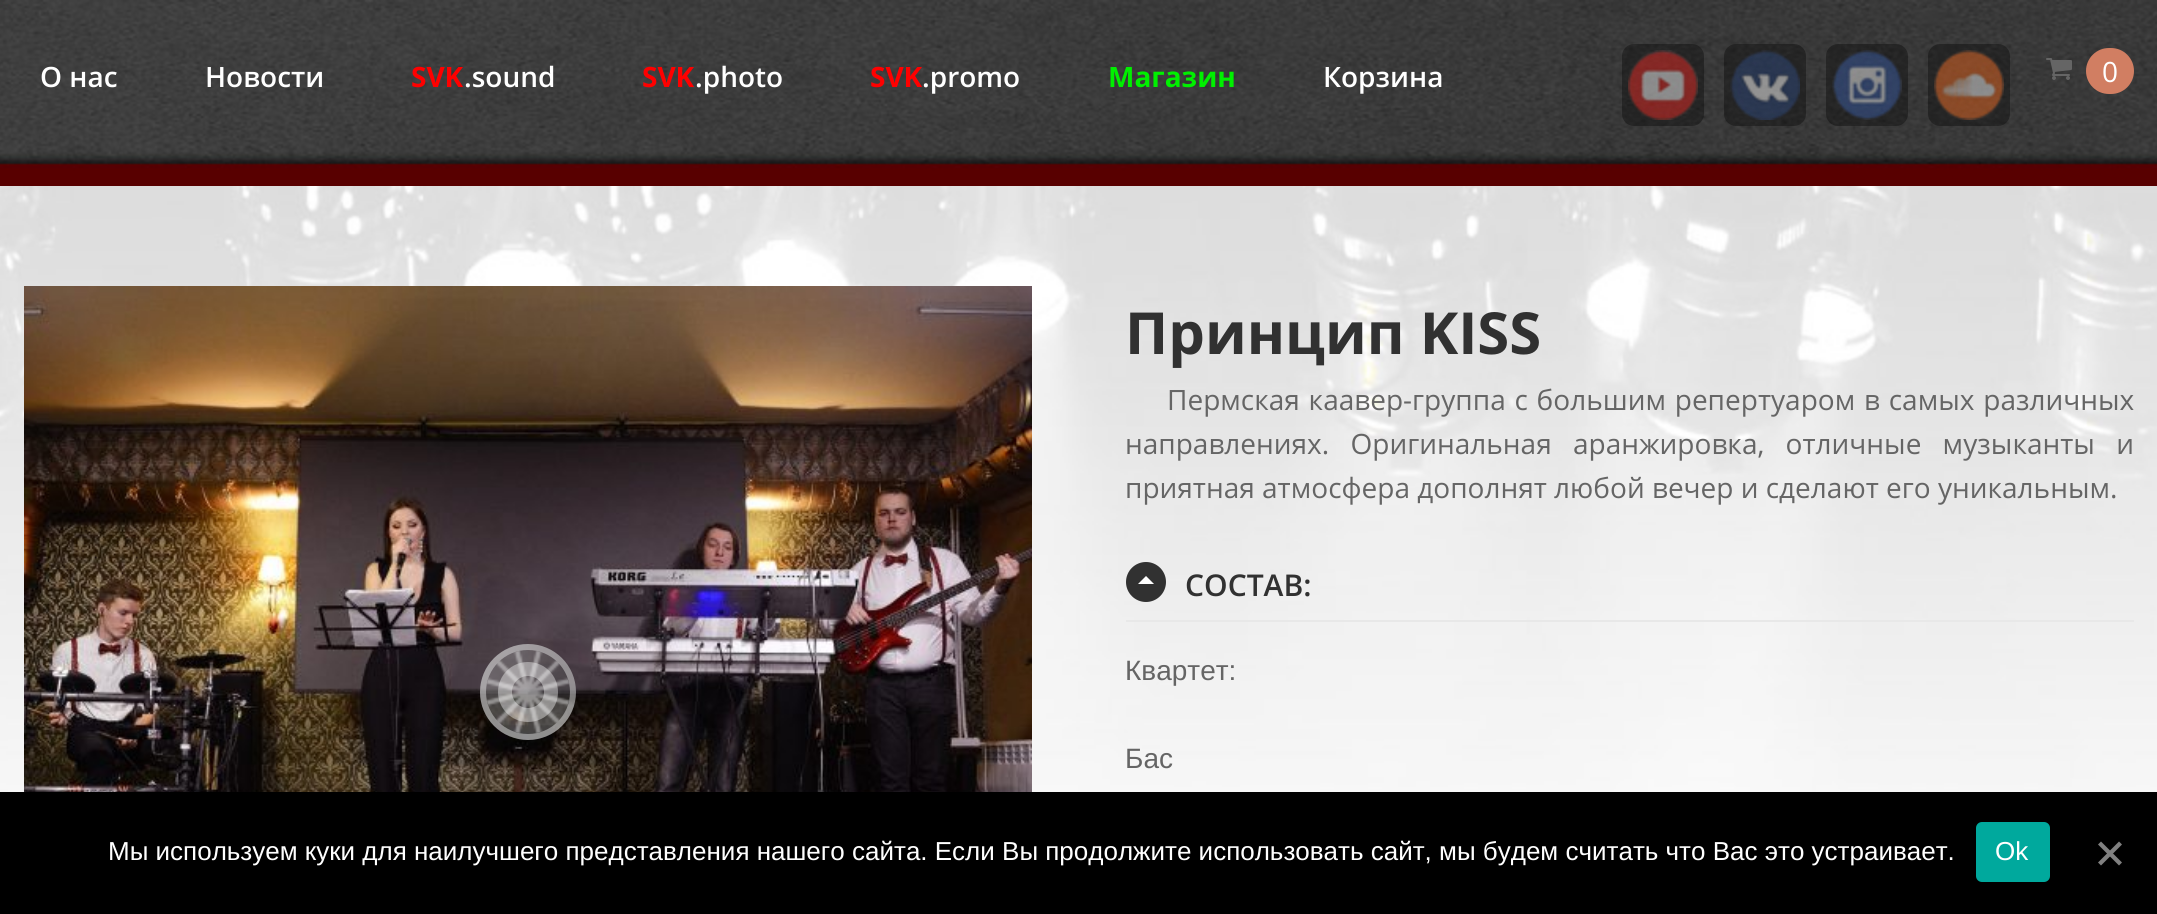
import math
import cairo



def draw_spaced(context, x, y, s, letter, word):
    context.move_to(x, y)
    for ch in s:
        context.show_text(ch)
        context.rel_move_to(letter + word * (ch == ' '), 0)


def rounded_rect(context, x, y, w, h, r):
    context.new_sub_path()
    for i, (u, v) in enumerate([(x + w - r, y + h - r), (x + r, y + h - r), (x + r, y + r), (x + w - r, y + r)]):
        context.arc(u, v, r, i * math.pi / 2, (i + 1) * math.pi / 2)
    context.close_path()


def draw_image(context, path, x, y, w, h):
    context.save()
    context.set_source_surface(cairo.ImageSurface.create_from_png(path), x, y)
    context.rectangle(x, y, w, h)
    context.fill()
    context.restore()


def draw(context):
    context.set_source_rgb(1, 1, 1)
    context.paint()
    draw_image(context, "images/1.png", 0, 0, 2157, 186)
    context.set_source_rgba(0, 0, 0, 0.35)
    rounded_rect(context, 1622, 44, 82, 82, 12)
    context.fill()
    draw_image(context, "images/2.png", 1628, 50, 70, 70)
    rounded_rect(context, 1724, 44, 82, 82, 12)
    context.fill()
    draw_image(context, "images/3.png", 1730, 50, 70, 70)
    rounded_rect(context, 1826, 44, 82, 82, 12)
    context.fill()
    draw_image(context, "images/4.png", 1832, 50, 70, 70)
    rounded_rect(context, 1928, 44, 82, 82, 12)
    context.fill()
    draw_image(context, "images/5.png", 1934, 50, 70, 70)
    draw_image(context, "images/6.png", 2046, 58, 26, 22)
    context.set_source_rgb(209 / 255, 126 / 255, 98 / 255)
    rounded_rect(context, 2086, 48, 48, 46, 23)
    context.fill()
    draw_image(context, "images/7.png", 0, 186, 2157, 606)
    draw_image(context, "images/8.png", 24, 286, 1008, 506)
    draw_image(context, "images/9.png", 480, 644, 96, 96)
    context.arc(528, 692, 45, 0, 2 * math.pi)
    context.set_source_rgba(1, 1, 1, 0.4)
    context.set_line_width(6)
    context.stroke()
    draw_image(context, "images/10.png", 487, 651, 82, 82)
    context.arc(528, 692, 23, 0, 2 * math.pi)
    context.set_line_width(14)
    context.stroke()
    context.set_source_rgb(49 / 255, 49 / 255, 49 / 255)
    context.arc(1146, 582, 20, 0, 2 * math.pi)
    context.fill()
    context.set_source_rgb(1, 1, 1)
    context.new_path()
    context.move_to(1154, 584)
    context.line_to(1138, 584)
    context.line_to(1146, 576)
    context.close_path()
    context.fill()
    context.set_source_rgb(232 / 255, 232 / 255, 232 / 255)
    context.rectangle(1126, 620, 1008, 2)
    context.fill()
    context.set_source_rgb(0, 0, 0)
    context.rectangle(0, 792, 2157, 122)
    context.fill()
    context.set_source_rgb(0, 169 / 255, 157 / 255)
    rounded_rect(context, 1976, 822, 74, 60, 6)
    context.fill()
    context.set_source_rgb(128 / 255, 128 / 255, 128 / 255)
    context.new_path()
    context.move_to(2119, 841.5)
    context.line_to(2122, 844.5)
    context.line_to(2101, 865.5)
    context.line_to(2098, 862.5)
    context.close_path()
    context.fill()
    context.new_path()
    context.move_to(2098, 844.5)
    context.line_to(2101, 841.5)
    context.line_to(2122, 862.5)
    context.line_to(2119, 865.5)
    context.close_path()
    context.fill()
    context.select_font_face("Open Sans SemiBold")
    context.set_font_size(28)
    context.set_source_rgb(1, 1, 1)
    context.move_to(40, 87)
    context.show_text("О нас")
    context.move_to(205, 87)
    context.show_text("Новости")
    context.select_font_face("Open Sans", cairo.FontSlant.NORMAL, cairo.FontWeight.BOLD)
    context.set_source_rgb(1, 0, 0)
    context.move_to(411, 87)
    context.show_text("SVK")
    context.select_font_face("Open Sans SemiBold")
    context.set_source_rgb(1, 1, 1)
    context.move_to(464, 87)
    context.show_text(".sound")
    context.select_font_face("Open Sans", cairo.FontSlant.NORMAL, cairo.FontWeight.BOLD)
    context.set_source_rgb(1, 0, 0)
    context.move_to(642, 87)
    context.show_text("SVK")
    context.select_font_face("Open Sans SemiBold")
    context.set_source_rgb(1, 1, 1)
    context.move_to(695, 87)
    context.show_text(".photo")
    context.select_font_face("Open Sans", cairo.FontSlant.NORMAL, cairo.FontWeight.BOLD)
    context.set_source_rgb(1, 0, 0)
    context.move_to(870, 87)
    context.show_text("SVK")
    context.select_font_face("Open Sans SemiBold")
    context.set_source_rgb(1, 1, 1)
    context.move_to(922, 87)
    context.show_text(".promo")
    context.select_font_face("Open Sans", cairo.FontSlant.NORMAL, cairo.FontWeight.BOLD)
    context.set_source_rgb(0, 240 / 255, 0)
    context.move_to(1108, 87)
    context.show_text("Магазин")
    context.select_font_face("Open Sans SemiBold")
    context.set_source_rgb(1, 1, 1)
    context.move_to(1323, 87)
    context.show_text("Корзина")
    context.select_font_face("Open Sans")
    context.move_to(2102, 82)
    context.show_text("0")
    context.select_font_face("Open Sans", cairo.FontSlant.NORMAL, cairo.FontWeight.BOLD)
    context.set_font_size(58)
    context.set_source_rgb(49 / 255, 49 / 255, 49 / 255)
    context.move_to(1125, 354)
    context.show_text("Принцип KISS")
    context.select_font_face("Open Sans")
    context.set_font_size(28)
    context.set_source_rgb(101 / 255, 101 / 255, 101 / 255)
    draw_spaced(context, 1167, 410, "Пермская каавер-группа с большим репертуаром в самых различных", 0, 1.5)
    draw_spaced(context, 1125, 454, "направлениях. Оригинальная аранжировка, отличные музыканты и", 0, 14)
    context.move_to(1125, 498)
    context.show_text("приятная атмосфера дополнят любой вечер и сделают его уникальным.")
    context.select_font_face("Open Sans SemiBold")
    context.set_font_size(30)
    context.set_source_rgb(49 / 255, 49 / 255, 49 / 255)
    context.move_to(1185, 596)
    context.show_text("СОСТАВ:")
    context.select_font_face("Liberation Sans")
    context.set_font_size(28)
    context.set_source_rgb(101 / 255, 101 / 255, 101 / 255)
    context.move_to(1125, 680)
    context.show_text("Квартет:")
    context.move_to(1125, 768)
    context.show_text("Бас")
    context.set_font_size(26)
    context.set_source_rgb(1, 1, 1)
    context.move_to(108, 860)
    context.show_text("Мы используем куки для наилучшего представления нашего сайта. Если Вы продолжите использовать сайт, мы будем считать что Вас это устраивает.")
    context.move_to(1995, 860)
    context.show_text("Ok")


surface = cairo.ImageSurface(cairo.Format.RGB24, 2157, 914)
context = cairo.Context(surface)
options = cairo.FontOptions()
options.set_hint_metrics(cairo.HintMetrics.OFF)
options.set_hint_style(cairo.HintStyle.NONE)
context.set_font_options(options)
context.set_miter_limit(4)
draw(context)
surface.write_to_png("out.png")
